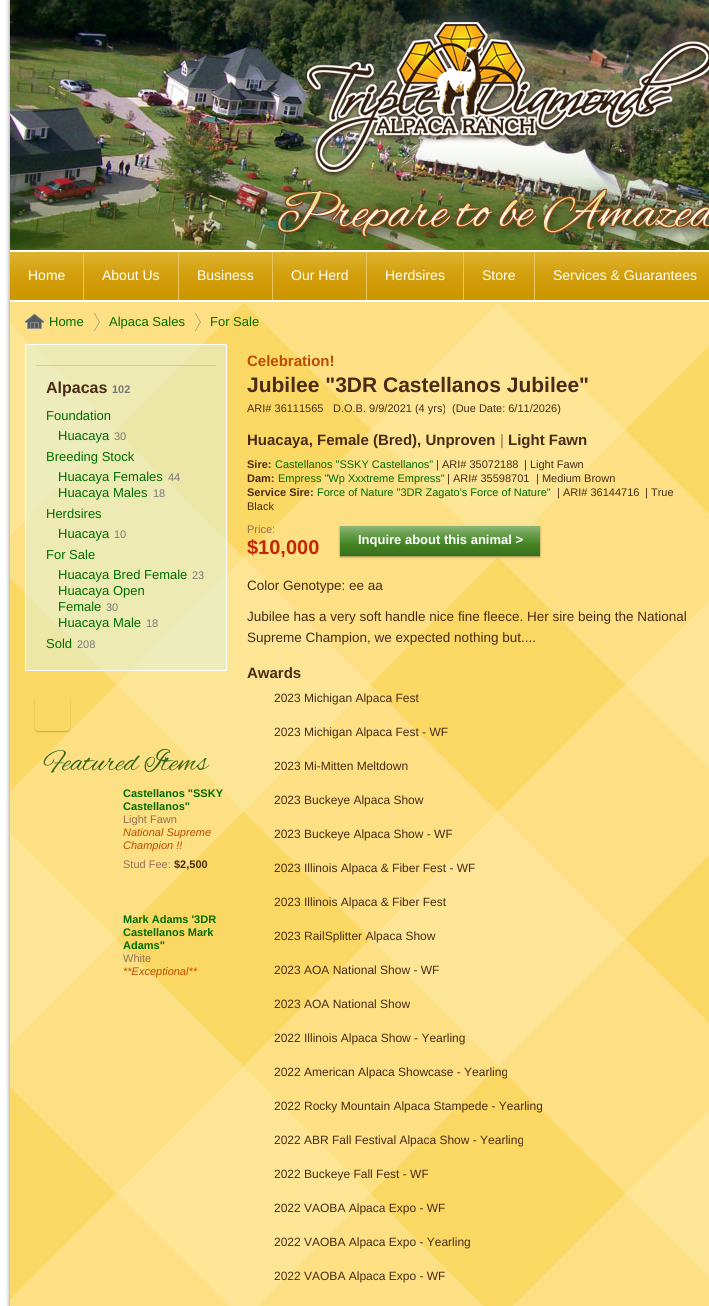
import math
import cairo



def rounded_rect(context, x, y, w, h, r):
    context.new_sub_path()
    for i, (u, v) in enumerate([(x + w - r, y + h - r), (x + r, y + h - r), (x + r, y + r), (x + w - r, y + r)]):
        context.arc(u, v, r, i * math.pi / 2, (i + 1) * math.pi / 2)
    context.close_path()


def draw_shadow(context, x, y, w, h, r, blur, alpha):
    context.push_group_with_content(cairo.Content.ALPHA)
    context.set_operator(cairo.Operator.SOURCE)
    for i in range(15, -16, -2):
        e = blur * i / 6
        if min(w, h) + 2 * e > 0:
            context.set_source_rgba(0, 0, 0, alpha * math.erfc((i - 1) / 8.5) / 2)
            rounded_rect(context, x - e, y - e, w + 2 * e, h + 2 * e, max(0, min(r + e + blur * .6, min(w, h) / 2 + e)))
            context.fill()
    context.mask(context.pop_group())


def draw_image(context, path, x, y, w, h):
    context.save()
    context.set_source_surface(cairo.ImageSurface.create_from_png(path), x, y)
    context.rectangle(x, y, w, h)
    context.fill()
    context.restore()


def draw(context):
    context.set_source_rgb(1, 1, 1)
    context.paint()
    context.set_source_rgb(0, 0, 0)
    draw_shadow(context, 10, 0, 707, 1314, 0, 2.5, 0.5)
    draw_image(context, "images/1.png", 10, 302, 699, 1004)
    draw_image(context, "images/2.png", 10, 0, 699, 250)
    draw_image(context, "images/3.png", 291, 3, 418, 188)
    draw_image(context, "images/4.png", 266, 178, 443, 72)
    draw_image(context, "images/5.png", 10, 252, 699, 48)
    context.set_source_rgb(1, 1, 1)
    context.rectangle(10, 250, 699, 2)
    context.fill()
    context.rectangle(10, 300, 699, 2)
    context.fill()
    context.set_source_rgb(232 / 255, 197 / 255, 97 / 255)
    context.rectangle(83, 252, 1, 48)
    context.fill()
    context.rectangle(178, 252, 1, 48)
    context.fill()
    context.rectangle(272, 252, 1, 48)
    context.fill()
    context.rectangle(366, 252, 1, 48)
    context.fill()
    context.rectangle(463, 252, 1, 48)
    context.fill()
    context.rectangle(534, 252, 1, 48)
    context.fill()
    draw_image(context, "images/6.png", 25, 314, 20, 15)
    draw_image(context, "images/7.png", 94, 313, 7, 18)
    draw_image(context, "images/7.png", 195, 313, 7, 18)
    context.set_source_rgba(227 / 255, 240 / 255, 212 / 255, 0.6)
    context.rectangle(25.5, 344.5, 201, 326)
    context.fill_preserve()
    context.set_source_rgb(1, 1, 1)
    context.set_line_width(1)
    context.stroke()
    context.set_source_rgba(0, 0, 0, 0.12)
    context.rectangle(36, 365, 180, 1)
    context.fill()
    context.save()
    context.set_fill_rule(cairo.FillRule.EVEN_ODD)
    context.new_path()
    context.move_to(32, 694)
    context.line_to(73, 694)
    context.line_to(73, 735)
    context.line_to(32, 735)
    context.close_path()
    context.move_to(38, 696)
    context.line_to(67, 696)
    context.curve_to(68.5, 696, 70, 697.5, 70, 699)
    context.line_to(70, 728)
    context.curve_to(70, 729.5, 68.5, 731, 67, 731)
    context.line_to(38, 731)
    context.curve_to(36.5, 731, 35, 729.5, 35, 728)
    context.line_to(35, 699)
    context.curve_to(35, 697.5, 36.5, 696, 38, 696)
    context.close_path()
    context.clip()
    context.set_source_rgb(0, 0, 0)
    draw_shadow(context, 35, 697, 35, 35, 3, 0.5, 0.2)
    context.restore()
    context.set_source_rgb(0, 0, 0)
    draw_shadow(context, 340, 527, 200, 30, 0, 1, 0.4)
    context.set_source_rgb(69 / 255, 135 / 255, 35 / 255)
    context.rectangle(340, 526, 200, 30)
    context.fill()
    draw_image(context, "images/8.png", 340, 526, 200, 30)
    context.select_font_face("Liberation Sans")
    context.set_font_size(14)
    context.set_source_rgb(1, 1, 1)
    context.move_to(28, 280)
    context.show_text("Home")
    context.move_to(102, 280)
    context.show_text("About Us")
    context.move_to(197, 280)
    context.show_text("Business")
    context.move_to(291, 280)
    context.show_text("Our Herd")
    context.move_to(385, 280)
    context.show_text("Herdsires")
    context.move_to(482, 280)
    context.show_text("Store")
    context.move_to(553, 280)
    context.show_text("Services & Guarantees")
    context.set_font_size(13)
    context.set_source_rgb(0, 108 / 255, 0)
    context.move_to(49, 326)
    context.show_text("Home")
    context.move_to(109, 326)
    context.show_text("Alpaca Sales")
    context.move_to(210, 326)
    context.show_text("For Sale")
    context.select_font_face("Liberation Sans", cairo.FontSlant.NORMAL, cairo.FontWeight.BOLD)
    context.set_font_size(16)
    context.set_source_rgb(73 / 255, 43 / 255, 22 / 255)
    context.move_to(46, 393)
    context.show_text("Alpacas")
    context.set_font_size(11)
    context.set_source_rgb(119 / 255, 119 / 255, 119 / 255)
    context.move_to(112, 393)
    context.show_text("102")
    context.select_font_face("Liberation Sans")
    context.set_font_size(13)
    context.set_source_rgb(0, 108 / 255, 0)
    context.move_to(46, 420)
    context.show_text("Foundation")
    context.move_to(58, 440)
    context.show_text("Huacaya")
    context.set_font_size(11)
    context.set_source_rgb(119 / 255, 119 / 255, 119 / 255)
    context.move_to(114, 440)
    context.show_text("30")
    context.set_font_size(13)
    context.set_source_rgb(0, 108 / 255, 0)
    context.move_to(46, 461)
    context.show_text("Breeding Stock")
    context.move_to(58, 481)
    context.show_text("Huacaya Females")
    context.set_font_size(11)
    context.set_source_rgb(119 / 255, 119 / 255, 119 / 255)
    context.move_to(168, 481)
    context.show_text("44")
    context.set_font_size(13)
    context.set_source_rgb(0, 108 / 255, 0)
    context.move_to(58, 497)
    context.show_text("Huacaya Males")
    context.set_font_size(11)
    context.set_source_rgb(119 / 255, 119 / 255, 119 / 255)
    context.move_to(153, 497)
    context.show_text("18")
    context.set_font_size(13)
    context.set_source_rgb(0, 108 / 255, 0)
    context.move_to(46, 518)
    context.show_text("Herdsires")
    context.move_to(58, 538)
    context.show_text("Huacaya")
    context.set_font_size(11)
    context.set_source_rgb(119 / 255, 119 / 255, 119 / 255)
    context.move_to(114, 538)
    context.show_text("10")
    context.set_font_size(13)
    context.set_source_rgb(0, 108 / 255, 0)
    context.move_to(46, 559)
    context.show_text("For Sale")
    context.move_to(58, 579)
    context.show_text("Huacaya Bred Female")
    context.set_font_size(11)
    context.set_source_rgb(119 / 255, 119 / 255, 119 / 255)
    context.move_to(192, 579)
    context.show_text("23")
    context.set_font_size(13)
    context.set_source_rgb(0, 108 / 255, 0)
    context.move_to(58, 595)
    context.show_text("Huacaya Open")
    context.move_to(58, 611)
    context.show_text("Female")
    context.set_font_size(11)
    context.set_source_rgb(119 / 255, 119 / 255, 119 / 255)
    context.move_to(106, 611)
    context.show_text("30")
    context.set_font_size(13)
    context.set_source_rgb(0, 108 / 255, 0)
    context.move_to(58, 627)
    context.show_text("Huacaya Male")
    context.set_font_size(11)
    context.set_source_rgb(119 / 255, 119 / 255, 119 / 255)
    context.move_to(146, 627)
    context.show_text("18")
    context.set_font_size(13)
    context.set_source_rgb(0, 108 / 255, 0)
    context.move_to(46, 648)
    context.show_text("Sold")
    context.set_font_size(11)
    context.set_source_rgb(119 / 255, 119 / 255, 119 / 255)
    context.move_to(77, 648)
    context.show_text("208")
    context.select_font_face("Alex Brush")
    context.set_font_size(30)
    context.set_source_rgb(53 / 255, 101 / 255, 26 / 255)
    context.move_to(44, 770)
    context.show_text("Featured Items")
    context.select_font_face("Liberation Sans", cairo.FontSlant.NORMAL, cairo.FontWeight.BOLD)
    context.set_font_size(11)
    context.set_source_rgb(0, 108 / 255, 0)
    context.move_to(123, 797)
    context.show_text("Castellanos \"SSKY")
    context.move_to(123, 810)
    context.show_text("Castellanos\"")
    context.select_font_face("Liberation Sans")
    context.set_source_rgb(148 / 255, 110 / 255, 84 / 255)
    context.move_to(123, 823)
    context.show_text("Light Fawn")
    context.select_font_face("Liberation Sans", cairo.FontSlant.ITALIC)
    context.set_source_rgb(187 / 255, 75 / 255, 1 / 255)
    context.move_to(123, 836)
    context.show_text("National Supreme")
    context.move_to(123, 849)
    context.show_text("Champion !!")
    context.select_font_face("Liberation Sans")
    context.set_source_rgb(148 / 255, 110 / 255, 84 / 255)
    context.move_to(123, 868)
    context.show_text("Stud Fee:")
    context.select_font_face("Liberation Sans", cairo.FontSlant.NORMAL, cairo.FontWeight.BOLD)
    context.set_source_rgb(73 / 255, 43 / 255, 22 / 255)
    context.move_to(174, 868)
    context.show_text("$2,500")
    context.set_source_rgb(0, 108 / 255, 0)
    context.move_to(123, 923)
    context.show_text("Mark Adams '3DR")
    context.move_to(123, 936)
    context.show_text("Castellanos Mark")
    context.move_to(123, 949)
    context.show_text("Adams\"")
    context.select_font_face("Liberation Sans")
    context.set_source_rgb(148 / 255, 110 / 255, 84 / 255)
    context.move_to(123, 962)
    context.show_text("White")
    context.select_font_face("Liberation Sans", cairo.FontSlant.ITALIC)
    context.set_source_rgb(187 / 255, 75 / 255, 1 / 255)
    context.move_to(123, 975)
    context.show_text("**Exceptional**")
    context.select_font_face("Liberation Sans", cairo.FontSlant.NORMAL, cairo.FontWeight.BOLD)
    context.set_font_size(15)
    context.move_to(247, 366)
    context.show_text("Celebration!")
    context.set_font_size(21)
    context.set_source_rgb(73 / 255, 43 / 255, 22 / 255)
    context.move_to(247, 392)
    context.show_text("Jubilee \"3DR Castellanos Jubilee\"")
    context.select_font_face("Liberation Sans")
    context.set_font_size(11)
    context.move_to(247, 412)
    context.show_text("ARI# 36111565")
    context.move_to(333, 412)
    context.show_text("D.O.B. 9/9/2021 (4 yrs)")
    context.move_to(452, 412)
    context.show_text("(Due Date: 6/11/2026)")
    context.select_font_face("Liberation Sans", cairo.FontSlant.NORMAL, cairo.FontWeight.BOLD)
    context.set_font_size(15)
    context.move_to(247, 445)
    context.show_text("Huacaya, Female (Bred), Unproven")
    context.select_font_face("Liberation Sans")
    context.set_source_rgb(148 / 255, 110 / 255, 84 / 255)
    context.move_to(500, 445)
    context.show_text("|")
    context.select_font_face("Liberation Sans", cairo.FontSlant.NORMAL, cairo.FontWeight.BOLD)
    context.set_source_rgb(73 / 255, 43 / 255, 22 / 255)
    context.move_to(508, 445)
    context.show_text("Light Fawn")
    context.set_font_size(11)
    context.move_to(247, 468)
    context.show_text("Sire:")
    context.select_font_face("Liberation Sans")
    context.set_source_rgb(0, 108 / 255, 0)
    context.move_to(275, 468)
    context.show_text("Castellanos \"SSKY Castellanos\"")
    context.set_source_rgb(73 / 255, 43 / 255, 22 / 255)
    context.move_to(436, 468)
    context.show_text("| ARI# 35072188")
    context.move_to(524, 468)
    context.show_text("| Light Fawn")
    context.select_font_face("Liberation Sans", cairo.FontSlant.NORMAL, cairo.FontWeight.BOLD)
    context.move_to(247, 482)
    context.show_text("Dam:")
    context.select_font_face("Liberation Sans")
    context.set_source_rgb(0, 108 / 255, 0)
    context.move_to(278, 482)
    context.show_text("Empress \"Wp Xxxtreme Empress\"")
    context.set_source_rgb(73 / 255, 43 / 255, 22 / 255)
    context.move_to(447, 482)
    context.show_text("| ARI# 35598701")
    context.move_to(536, 482)
    context.show_text("| Medium Brown")
    context.select_font_face("Liberation Sans", cairo.FontSlant.NORMAL, cairo.FontWeight.BOLD)
    context.move_to(247, 496)
    context.show_text("Service Sire:")
    context.select_font_face("Liberation Sans")
    context.set_source_rgb(0, 108 / 255, 0)
    context.move_to(317, 496)
    context.show_text("Force of Nature \"3DR Zagato's Force of Nature\"")
    context.set_source_rgb(73 / 255, 43 / 255, 22 / 255)
    context.move_to(557, 496)
    context.show_text("| ARI# 36144716")
    context.move_to(645, 496)
    context.show_text("| True")
    context.move_to(247, 510)
    context.show_text("Black")
    context.set_source_rgb(148 / 255, 110 / 255, 84 / 255)
    context.move_to(247, 533)
    context.show_text("Price:")
    context.select_font_face("Liberation Sans", cairo.FontSlant.NORMAL, cairo.FontWeight.BOLD)
    context.set_font_size(20)
    context.set_source_rgb(195 / 255, 37 / 255, 0)
    context.move_to(247, 554)
    context.show_text("$10,000")
    context.set_font_size(13)
    context.set_source_rgb(1, 1, 1)
    context.move_to(358, 544)
    context.show_text("Inquire about this animal >")
    context.select_font_face("Liberation Sans")
    context.set_font_size(13.5)
    context.set_source_rgb(73 / 255, 43 / 255, 22 / 255)
    context.move_to(247, 590)
    context.show_text("Color Genotype: ee aa")
    context.move_to(247, 621)
    context.show_text("Jubilee has a very soft handle nice fine fleece. Her sire being the National")
    context.move_to(247, 642)
    context.show_text("Supreme Champion, we expected nothing but....")
    context.select_font_face("Liberation Sans", cairo.FontSlant.NORMAL, cairo.FontWeight.BOLD)
    context.set_font_size(15)
    context.move_to(247, 678)
    context.show_text("Awards")
    context.select_font_face("Liberation Sans")
    context.set_font_size(12)
    context.move_to(274, 702)
    context.show_text("2023 Michigan Alpaca Fest")
    context.move_to(274, 736)
    context.show_text("2023 Michigan Alpaca Fest - WF")
    context.move_to(274, 770)
    context.show_text("2023 Mi-Mitten Meltdown")
    context.move_to(274, 804)
    context.show_text("2023 Buckeye Alpaca Show")
    context.move_to(274, 838)
    context.show_text("2023 Buckeye Alpaca Show - WF")
    context.move_to(274, 872)
    context.show_text("2023 Illinois Alpaca & Fiber Fest - WF")
    context.move_to(274, 906)
    context.show_text("2023 Illinois Alpaca & Fiber Fest")
    context.move_to(274, 940)
    context.show_text("2023 RailSplitter Alpaca Show")
    context.move_to(274, 974)
    context.show_text("2023 AOA National Show - WF")
    context.move_to(274, 1008)
    context.show_text("2023 AOA National Show")
    context.move_to(274, 1042)
    context.show_text("2022 Illinois Alpaca Show - Yearling")
    context.move_to(274, 1076)
    context.show_text("2022 American Alpaca Showcase - Yearling")
    context.move_to(274, 1110)
    context.show_text("2022 Rocky Mountain Alpaca Stampede - Yearling")
    context.move_to(274, 1144)
    context.show_text("2022 ABR Fall Festival Alpaca Show - Yearling")
    context.move_to(274, 1178)
    context.show_text("2022 Buckeye Fall Fest - WF")
    context.move_to(274, 1212)
    context.show_text("2022 VAOBA Alpaca Expo - WF")
    context.move_to(274, 1246)
    context.show_text("2022 VAOBA Alpaca Expo - Yearling")
    context.move_to(274, 1280)
    context.show_text("2022 VAOBA Alpaca Expo - WF")


surface = cairo.ImageSurface(cairo.Format.RGB24, 709, 1306)
context = cairo.Context(surface)
options = cairo.FontOptions()
options.set_hint_metrics(cairo.HintMetrics.OFF)
options.set_hint_style(cairo.HintStyle.NONE)
context.set_font_options(options)
context.set_miter_limit(4)
draw(context)
surface.write_to_png("out.png")
